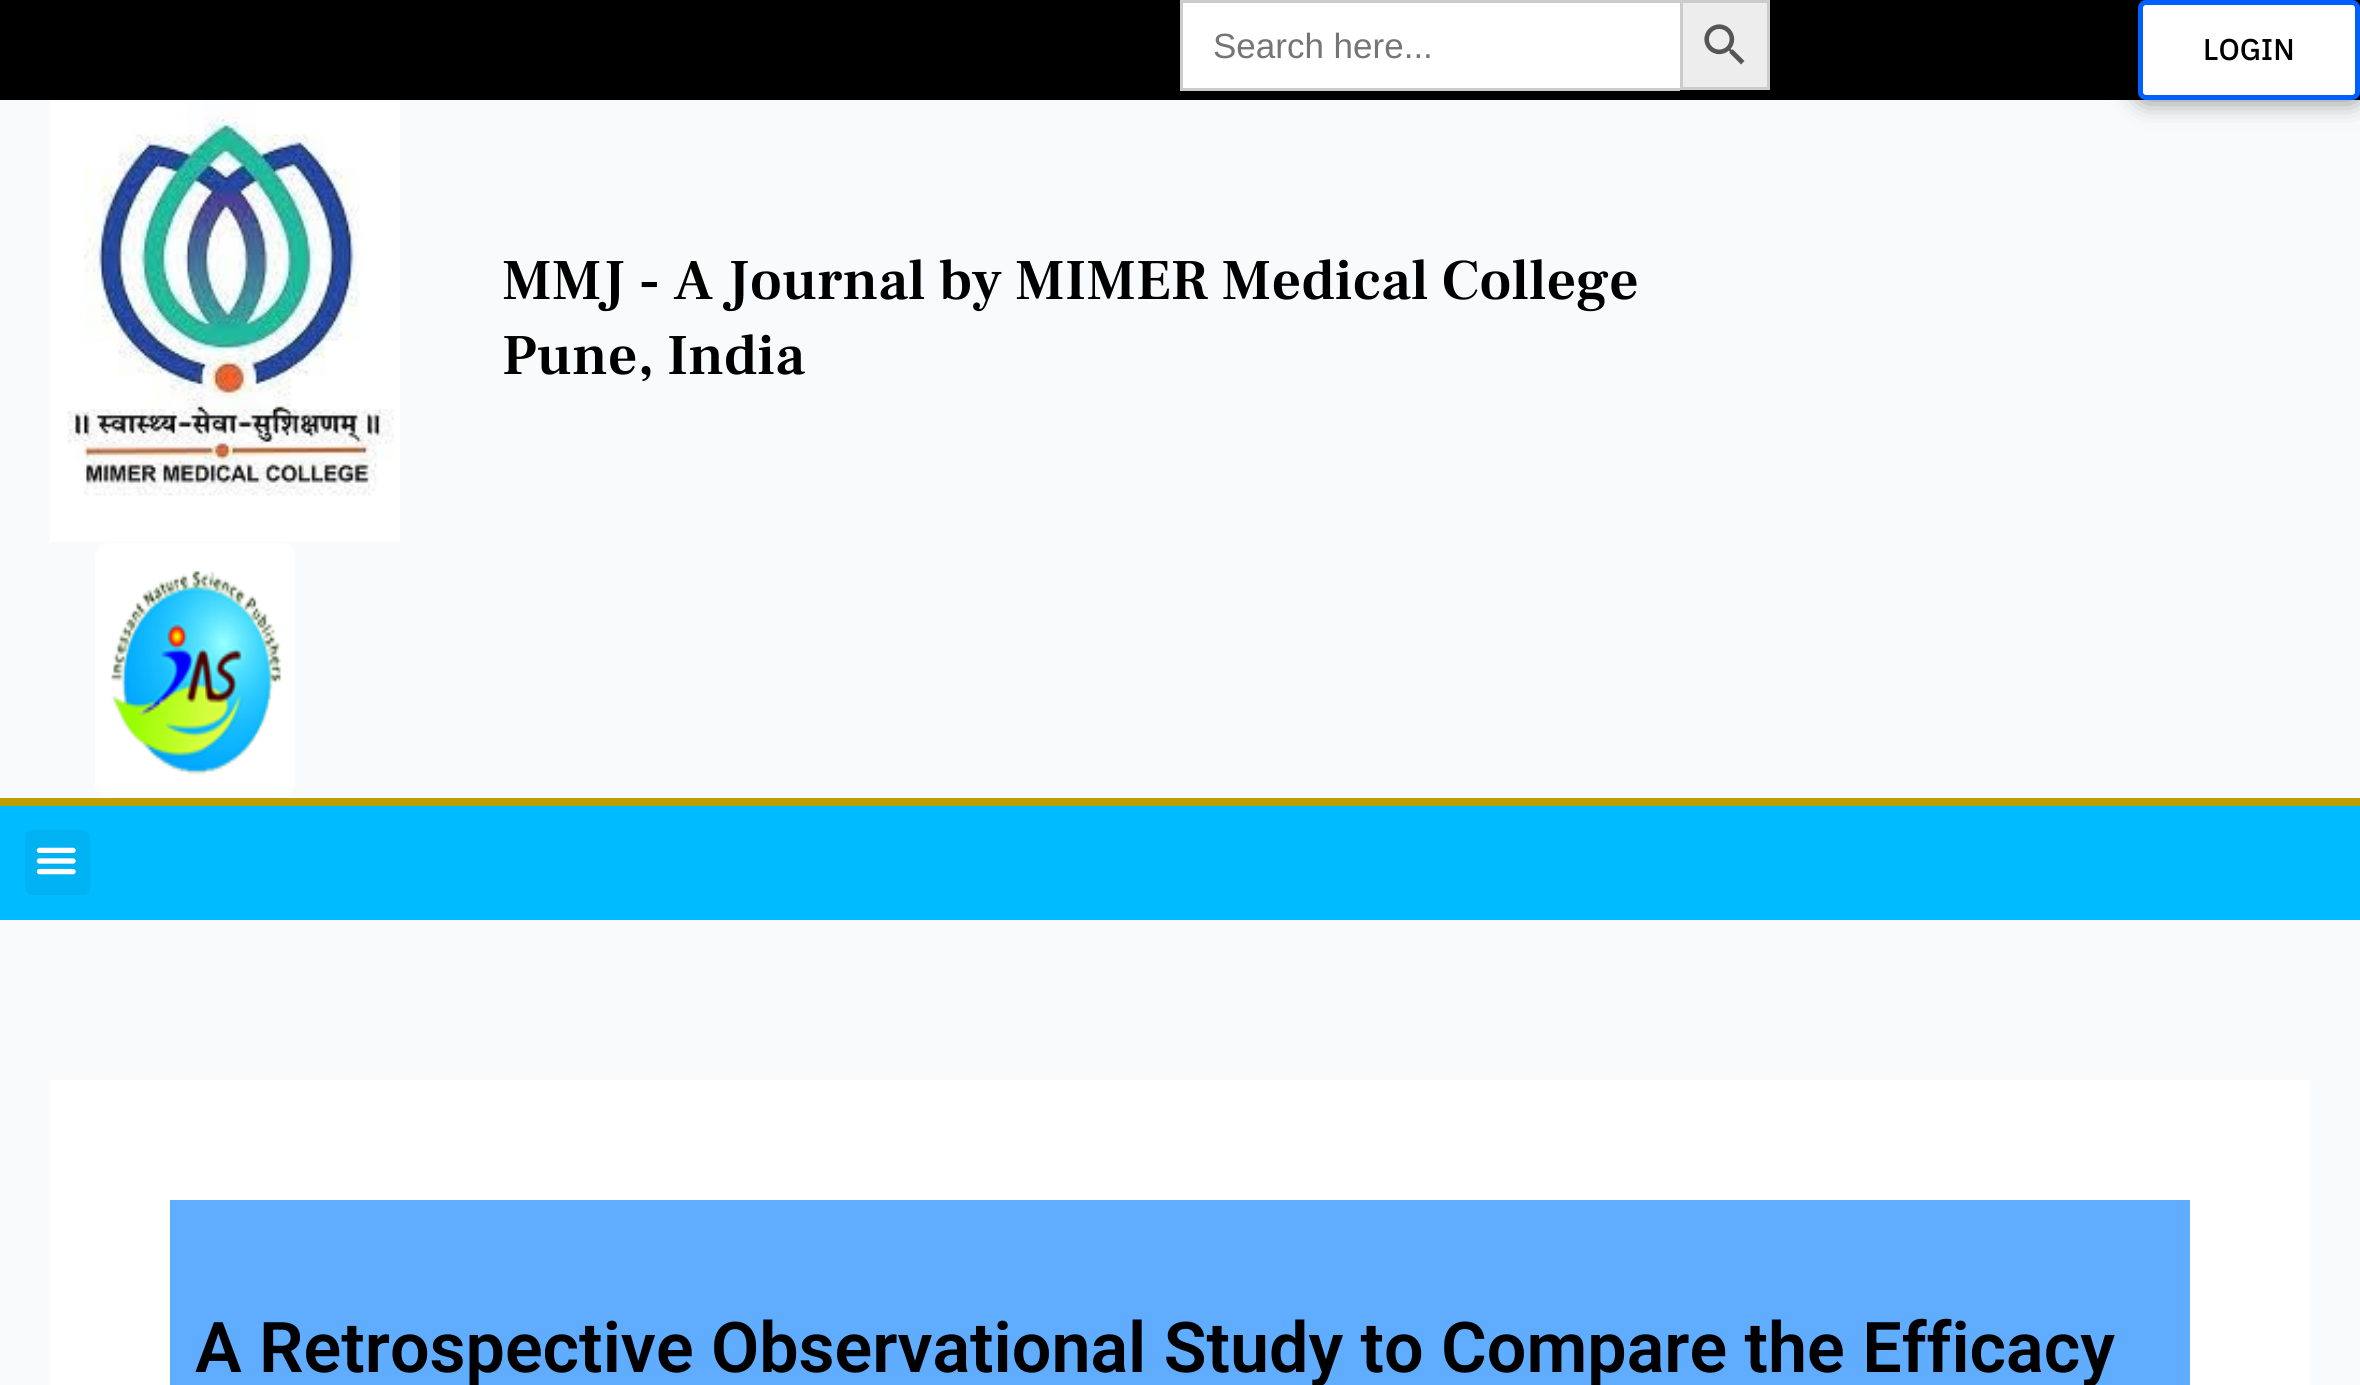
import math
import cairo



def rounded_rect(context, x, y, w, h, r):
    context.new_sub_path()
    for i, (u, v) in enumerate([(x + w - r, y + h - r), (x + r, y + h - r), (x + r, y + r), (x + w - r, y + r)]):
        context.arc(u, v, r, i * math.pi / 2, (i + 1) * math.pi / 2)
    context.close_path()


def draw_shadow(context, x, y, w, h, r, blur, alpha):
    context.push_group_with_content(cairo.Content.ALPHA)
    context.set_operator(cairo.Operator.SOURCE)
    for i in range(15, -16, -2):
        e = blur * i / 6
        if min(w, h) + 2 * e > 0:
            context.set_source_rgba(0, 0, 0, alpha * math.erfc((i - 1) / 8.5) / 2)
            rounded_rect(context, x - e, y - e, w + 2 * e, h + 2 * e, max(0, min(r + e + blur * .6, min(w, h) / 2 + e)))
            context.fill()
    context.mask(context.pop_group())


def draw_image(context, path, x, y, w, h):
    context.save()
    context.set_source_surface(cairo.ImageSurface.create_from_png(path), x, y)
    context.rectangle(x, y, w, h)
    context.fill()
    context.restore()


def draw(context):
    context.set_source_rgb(249 / 255, 250 / 255, 251 / 255)
    context.paint()
    context.set_source_rgb(0, 0, 0)
    context.rectangle(0, 0, 2360, 100)
    context.fill()
    context.set_source_rgb(1, 1, 1)
    context.rectangle(1183, 3, 497, 85)
    context.fill()
    context.set_source_rgb(204 / 255, 204 / 255, 204 / 255)
    context.rectangle(1180, 0, 500, 3)
    context.fill()
    context.rectangle(1180, 88, 500, 3)
    context.fill()
    context.rectangle(1180, 0, 3, 90)
    context.fill()
    context.set_source_rgb(237 / 255, 237 / 255, 237 / 255)
    context.rectangle(1681.5, 1.5, 87, 87)
    context.fill_preserve()
    context.set_source_rgb(204 / 255, 204 / 255, 204 / 255)
    context.set_line_width(3)
    context.stroke()
    draw_image(context, "images/1.png", 1704, 24, 41, 41)
    context.set_source_rgb(0, 0, 0)
    draw_shadow(context, 2138, 0, 222, 100, 8, 12.5, 0.5)
    context.set_source_rgb(1, 1, 1)
    rounded_rect(context, 2140.5, 2.5, 217, 95, 5.5)
    context.fill_preserve()
    context.set_source_rgb(0, 95 / 255, 1)
    context.set_line_width(5)
    context.stroke()
    draw_image(context, "images/2.png", 50, 100, 350, 442)
    draw_image(context, "images/3.png", 95, 543, 200, 254)
    context.set_source_rgb(0, 187 / 255, 1)
    context.rectangle(0, 806, 2360, 114)
    context.fill()
    context.set_source_rgb(191 / 255, 159 / 255, 0)
    context.rectangle(0, 798, 2360, 8)
    context.fill()
    context.set_source_rgb(0, 178 / 255, 242 / 255)
    rounded_rect(context, 25, 830, 65, 65, 8)
    context.fill()
    draw_image(context, "images/4.png", 36, 847, 40, 28)
    context.set_source_rgb(1, 1, 1)
    context.rectangle(50, 1080, 2260, 305)
    context.fill()
    context.set_source_rgb(96 / 255, 172 / 255, 1)
    context.rectangle(170, 1200, 2020, 185)
    context.fill()
    context.select_font_face("Liberation Sans")
    context.set_font_size(35)
    context.set_source_rgb(117 / 255, 117 / 255, 117 / 255)
    context.move_to(1213, 58)
    context.show_text("Search here...")
    context.select_font_face("IBM Plex Sans Medium")
    context.set_font_size(30)
    context.set_source_rgb(0, 0, 0)
    context.move_to(2203, 60)
    context.show_text("LOGIN")
    context.select_font_face("Frank Ruhl Libre SemiBold")
    context.set_font_size(57.5)
    context.move_to(502, 299)
    context.show_text("MMJ - A Journal by MIMER Medical College")
    context.move_to(502, 374)
    context.show_text("Pune, India")
    context.select_font_face("Roboto SemiBold")
    context.set_font_size(70)
    context.move_to(195, 1372)
    context.show_text("A Retrospective Observational Study to Compare the Efficacy")


surface = cairo.ImageSurface(cairo.Format.RGB24, 2360, 1385)
context = cairo.Context(surface)
options = cairo.FontOptions()
options.set_hint_metrics(cairo.HintMetrics.OFF)
options.set_hint_style(cairo.HintStyle.NONE)
context.set_font_options(options)
context.set_miter_limit(4)
draw(context)
surface.write_to_png("out.png")
